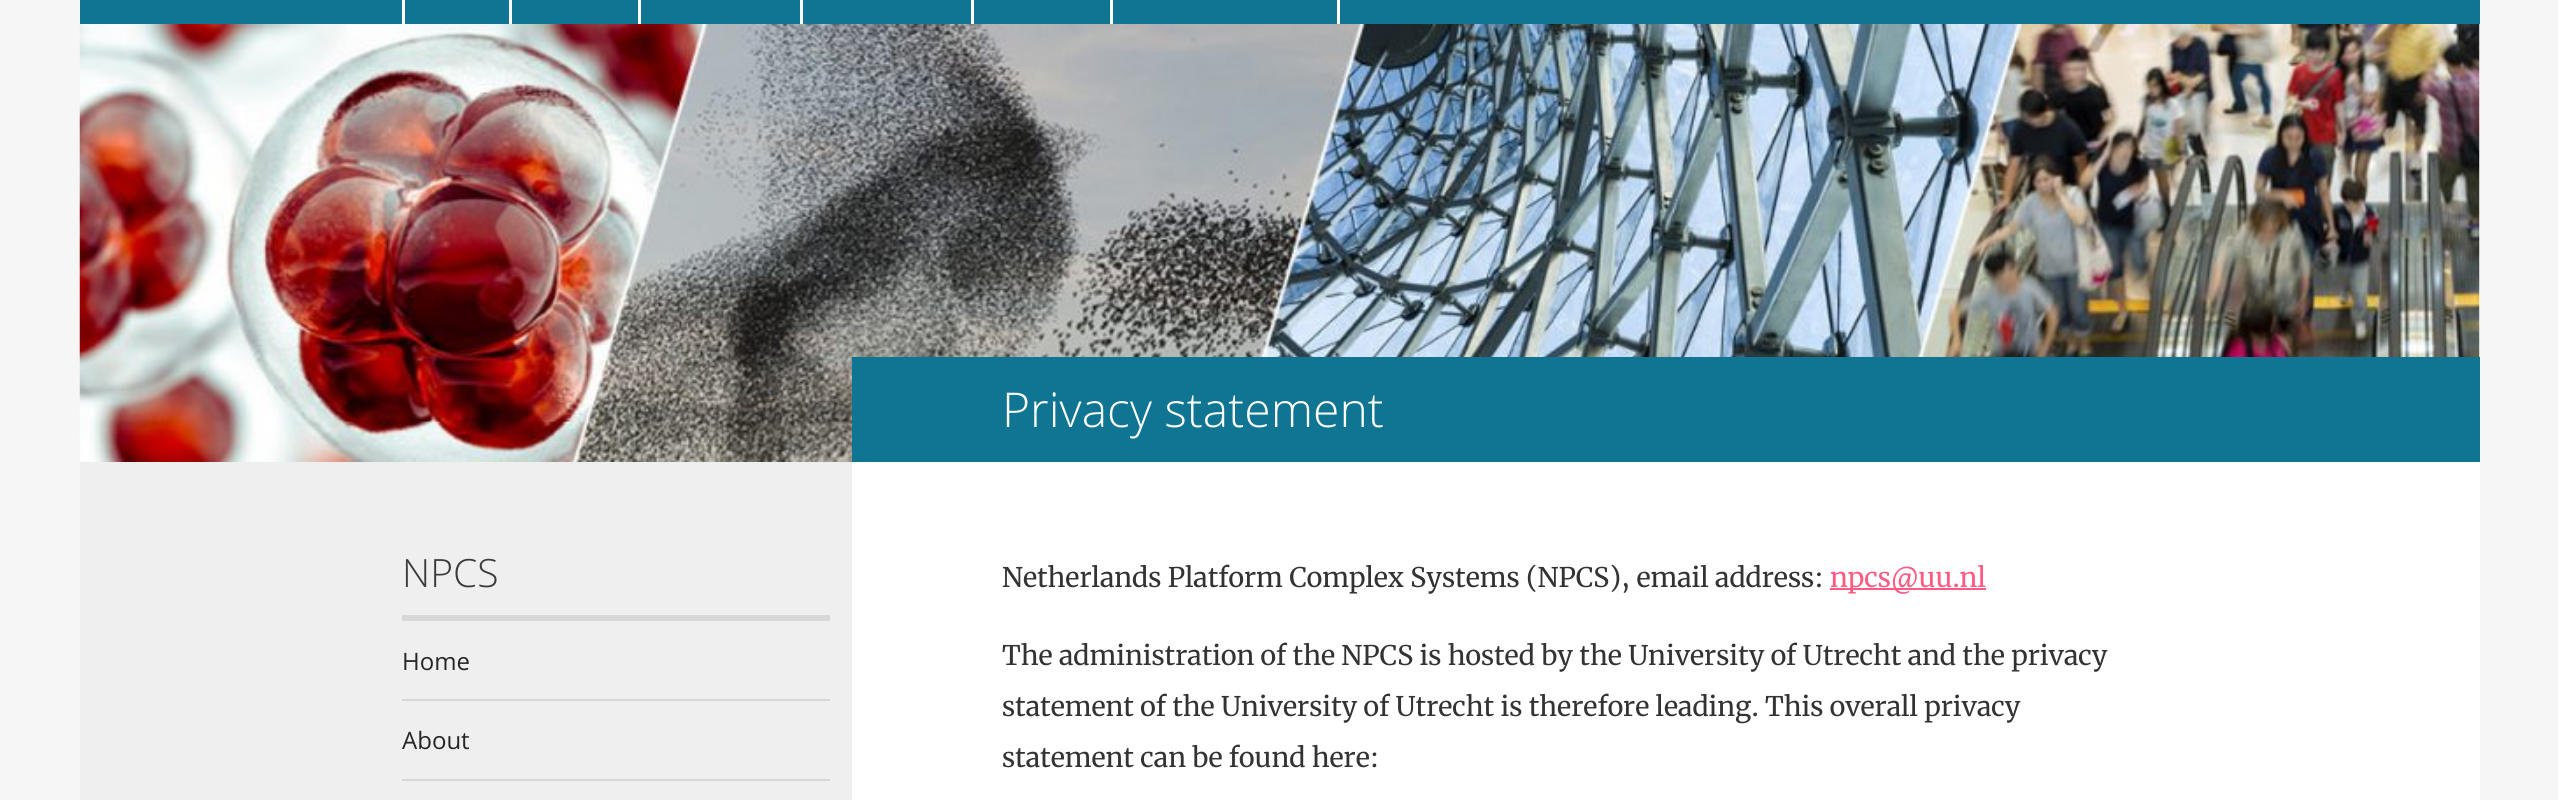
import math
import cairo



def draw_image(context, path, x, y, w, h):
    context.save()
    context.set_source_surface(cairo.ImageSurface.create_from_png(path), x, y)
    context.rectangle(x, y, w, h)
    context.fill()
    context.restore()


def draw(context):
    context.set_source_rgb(246 / 255, 246 / 255, 246 / 255)
    context.paint()
    context.set_source_rgb(15 / 255, 117 / 255, 146 / 255)
    context.rectangle(80, 0, 2400, 24)
    context.fill()
    context.set_source_rgb(1, 1, 1)
    context.rectangle(402, 0, 3, 24)
    context.fill()
    context.rectangle(509, 0, 3, 24)
    context.fill()
    context.rectangle(638, 0, 3, 24)
    context.fill()
    context.rectangle(800, 0, 3, 24)
    context.fill()
    context.rectangle(971, 0, 3, 24)
    context.fill()
    context.rectangle(1110, 0, 3, 24)
    context.fill()
    context.rectangle(1337, 0, 3, 24)
    context.fill()
    context.set_source_rgb(239 / 255, 239 / 255, 239 / 255)
    context.rectangle(80, 462, 772, 338)
    context.fill()
    context.set_source_rgb(1, 1, 1)
    context.rectangle(852, 462, 1628, 338)
    context.fill()
    context.rectangle(2479, 24, 1, 333)
    context.fill()
    draw_image(context, "images/1.png", 79, 24, 2401, 438)
    context.set_source_rgb(15 / 255, 117 / 255, 146 / 255)
    context.rectangle(852, 357, 1628, 105)
    context.fill()
    context.set_source_rgb(215 / 255, 215 / 255, 215 / 255)
    context.rectangle(402, 615, 428, 6)
    context.fill()
    context.rectangle(402, 699, 428, 2)
    context.fill()
    context.rectangle(402, 779, 428, 2)
    context.fill()
    context.set_source_rgb(1, 91 / 255, 130 / 255)
    context.rectangle(1830, 588, 156, 2)
    context.fill()
    context.select_font_face("Open Sans Light")
    context.set_font_size(39)
    context.set_source_rgb(59 / 255, 59 / 255, 59 / 255)
    context.move_to(402, 587)
    context.show_text("NPCS")
    context.select_font_face("Open Sans")
    context.set_font_size(24)
    context.set_source_rgb(38 / 255, 38 / 255, 38 / 255)
    context.move_to(402, 670)
    context.show_text("Home")
    context.move_to(402, 749)
    context.show_text("About")
    context.select_font_face("Open Sans Light")
    context.set_font_size(48)
    context.set_source_rgb(1, 1, 1)
    context.move_to(1002, 427)
    context.show_text("Privacy statement")
    context.select_font_face("Merriweather")
    context.set_font_size(27)
    context.set_source_rgb(51 / 255, 51 / 255, 51 / 255)
    context.move_to(1002, 587)
    context.show_text("Netherlands Platform Complex Systems (NPCS), email address:")
    context.set_source_rgb(1, 91 / 255, 130 / 255)
    context.move_to(1830, 587)
    context.show_text("npcs@uu.nl")
    context.set_source_rgb(51 / 255, 51 / 255, 51 / 255)
    context.move_to(1002, 665)
    context.show_text("The administration of the NPCS is hosted by the University of Utrecht and the privacy")
    context.move_to(1002, 716)
    context.show_text("statement of the University of Utrecht is therefore leading. This overall privacy")
    context.move_to(1002, 767)
    context.show_text("statement can be found here:")


surface = cairo.ImageSurface(cairo.Format.RGB24, 2558, 800)
context = cairo.Context(surface)
options = cairo.FontOptions()
options.set_hint_metrics(cairo.HintMetrics.OFF)
options.set_hint_style(cairo.HintStyle.NONE)
context.set_font_options(options)
context.set_miter_limit(4)
draw(context)
surface.write_to_png("out.png")
